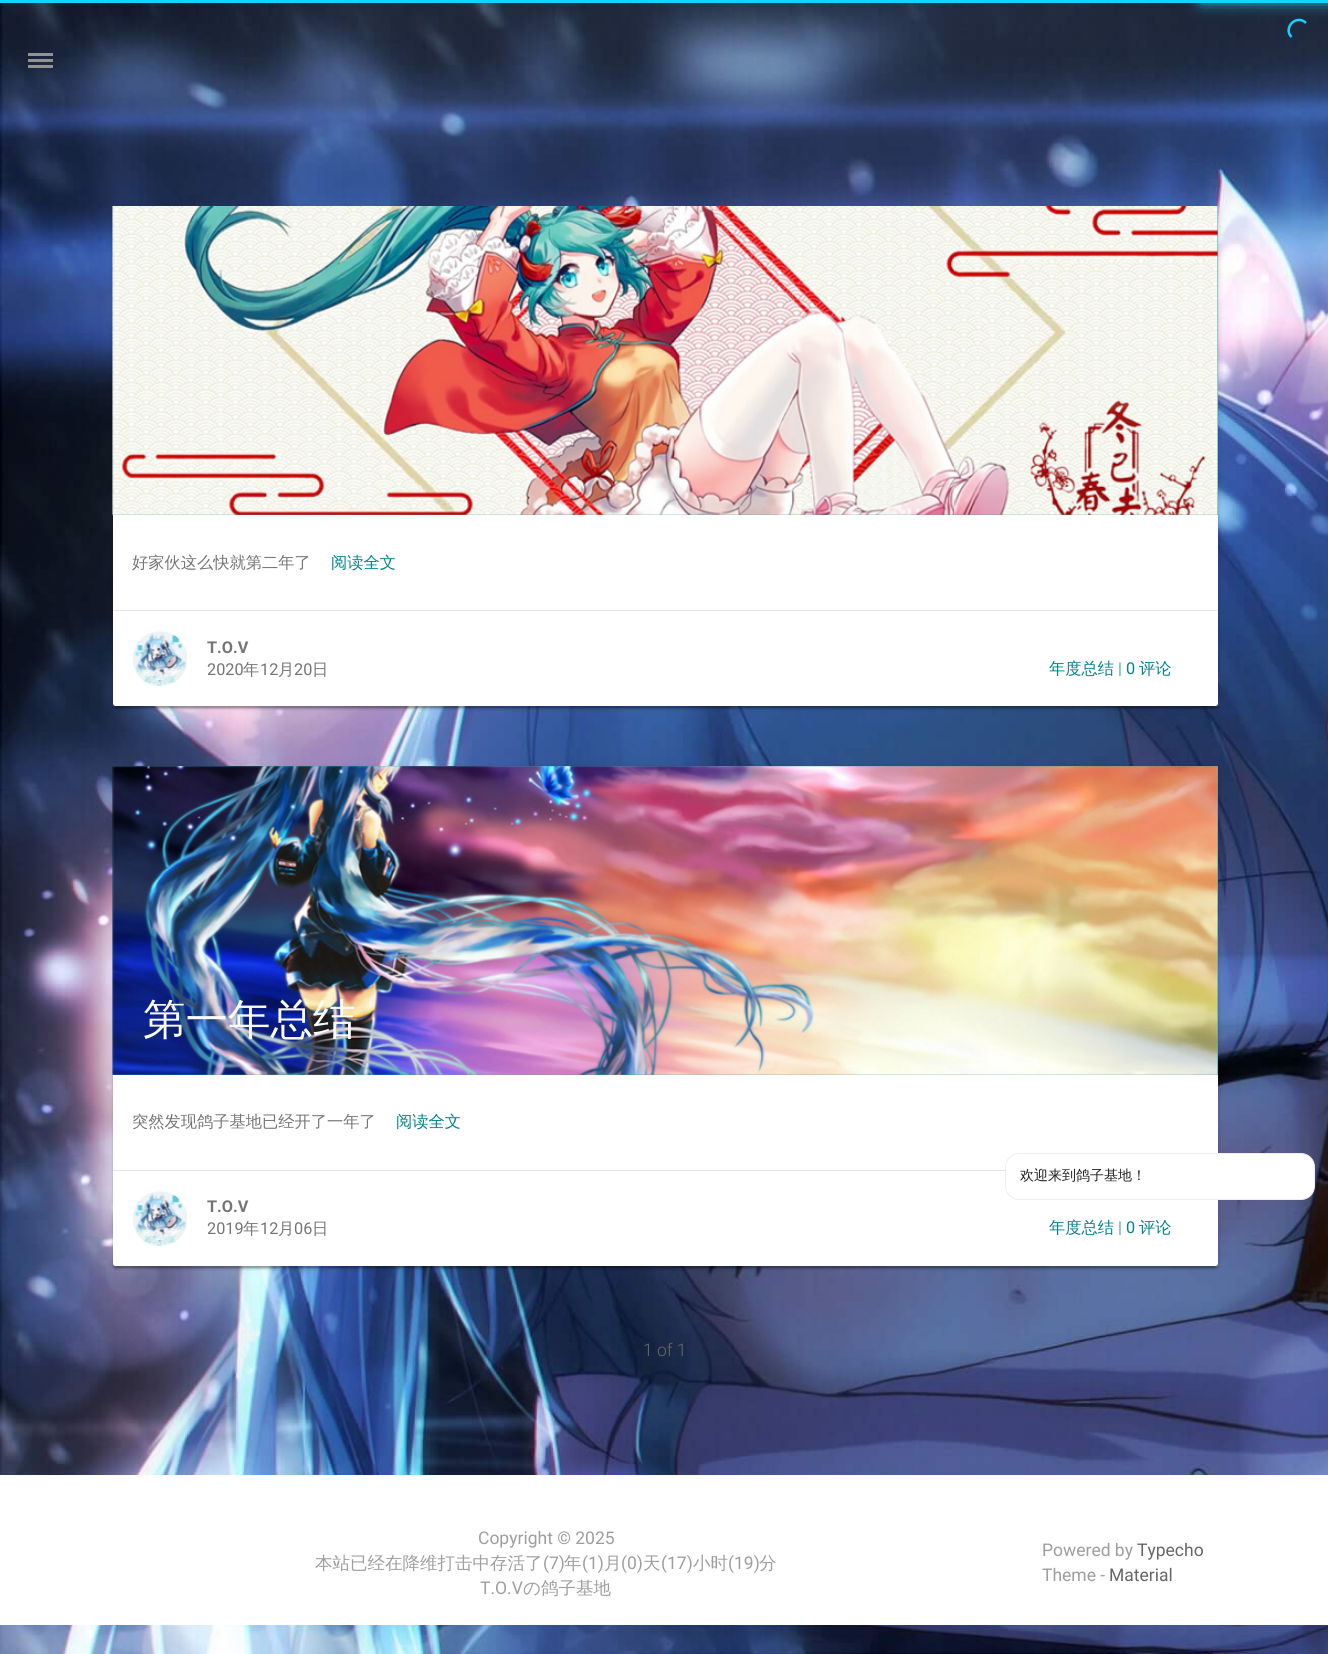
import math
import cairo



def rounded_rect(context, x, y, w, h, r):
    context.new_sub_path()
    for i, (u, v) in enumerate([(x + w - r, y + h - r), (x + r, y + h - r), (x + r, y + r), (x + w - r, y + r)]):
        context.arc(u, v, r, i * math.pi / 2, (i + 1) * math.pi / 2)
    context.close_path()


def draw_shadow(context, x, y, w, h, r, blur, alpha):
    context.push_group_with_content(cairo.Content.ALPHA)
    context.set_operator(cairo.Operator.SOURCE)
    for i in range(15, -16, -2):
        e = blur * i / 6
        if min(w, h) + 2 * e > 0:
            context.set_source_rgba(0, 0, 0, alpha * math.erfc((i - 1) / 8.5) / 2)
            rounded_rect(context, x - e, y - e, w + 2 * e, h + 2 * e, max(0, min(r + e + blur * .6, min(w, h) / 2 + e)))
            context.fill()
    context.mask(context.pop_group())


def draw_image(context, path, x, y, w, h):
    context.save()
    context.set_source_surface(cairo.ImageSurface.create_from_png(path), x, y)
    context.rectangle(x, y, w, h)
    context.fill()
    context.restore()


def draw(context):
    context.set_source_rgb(1, 1, 1)
    context.paint()
    draw_image(context, "images/1.png", 0, 3, 1328, 1651)
    context.set_source_rgb(16 / 255, 213 / 255, 1)
    context.rectangle(0, 0, 1328, 3)
    context.fill()
    context.set_source_rgb(16 / 255, 213 / 255, 1)
    draw_shadow(context, 1204, -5, 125, 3, 0, 9.5, 1)
    draw_shadow(context, 1204, -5, 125, 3, 0, 6.5, 1)
    context.new_path()
    context.move_to(1291.5, 37)
    context.curve_to(1282.5, 28, 1296.5, 13.5, 1306, 23)
    context.set_source_rgb(16 / 255, 213 / 255, 1)
    context.set_line_width(2.5)
    context.stroke()
    context.set_source_rgb(146 / 255, 146 / 255, 146 / 255)
    context.rectangle(28, 59, 25, 3)
    context.fill()
    context.rectangle(28, 53, 25, 3)
    context.fill()
    context.rectangle(28, 65, 25, 3)
    context.fill()
    context.set_source_rgb(0, 0, 0)
    draw_shadow(context, 113, 208, 1105, 500, 2.5, 3, 0.12)
    draw_shadow(context, 115, 213, 1100, 495, 0, 0.5, 0.2)
    draw_shadow(context, 113, 209, 1105, 500, 2.5, 1, 0.14)
    context.set_source_rgb(1, 1, 1)
    rounded_rect(context, 113, 206, 1105, 500, 2.5)
    context.fill()
    context.set_source_rgb(71 / 255, 167 / 255, 157 / 255)
    context.rectangle(113, 206, 1105, 309)
    context.fill()
    draw_image(context, "images/2.png", 112, 206, 1106, 309)
    context.set_source_rgb(230 / 255, 230 / 255, 230 / 255)
    context.rectangle(113, 610, 1105, 1)
    context.fill()
    draw_image(context, "images/3.png", 132, 631, 55, 55)
    context.set_source_rgb(0, 0, 0)
    draw_shadow(context, 113, 768, 1105, 500, 2.5, 3, 0.12)
    draw_shadow(context, 115, 773, 1100, 495, 0, 0.5, 0.2)
    draw_shadow(context, 113, 769, 1105, 500, 2.5, 1, 0.14)
    context.set_source_rgb(1, 1, 1)
    rounded_rect(context, 113, 766, 1105, 500, 2.5)
    context.fill()
    context.set_source_rgb(71 / 255, 167 / 255, 157 / 255)
    context.rectangle(113, 766, 1105, 309)
    context.fill()
    draw_image(context, "images/4.png", 112, 766, 1106, 309)
    context.set_source_rgb(230 / 255, 230 / 255, 230 / 255)
    context.rectangle(113, 1170, 892, 1)
    context.fill()
    draw_image(context, "images/3.png", 132, 1191, 55, 55)
    context.set_source_rgb(1, 1, 1)
    context.rectangle(0, 1475, 1328, 150)
    context.fill()
    rounded_rect(context, 1005.5, 1153.5, 309, 46, 13.5)
    context.fill_preserve()
    context.set_source_rgb(238 / 255, 238 / 255, 238 / 255)
    context.set_line_width(1)
    context.stroke()
    context.select_font_face("WenQuanYi Zen Hei Medium")
    context.set_font_size(16.25)
    context.set_source_rgb(117 / 255, 117 / 255, 117 / 255)
    context.move_to(132, 568)
    context.show_text("好家伙这么快就第二年了")
    context.set_source_rgb(0, 131 / 255, 143 / 255)
    context.move_to(331, 568)
    context.show_text("阅读全文")
    context.select_font_face("Roboto", cairo.FontSlant.NORMAL, cairo.FontWeight.BOLD)
    context.set_source_rgb(117 / 255, 117 / 255, 117 / 255)
    context.move_to(207, 653)
    context.show_text("T.O.V")
    context.select_font_face("Roboto")
    context.move_to(207, 675)
    context.show_text("2020")
    context.select_font_face("WenQuanYi Zen Hei Medium")
    context.move_to(243, 675)
    context.show_text("年")
    context.select_font_face("Roboto")
    context.move_to(260, 675)
    context.show_text("12")
    context.select_font_face("WenQuanYi Zen Hei Medium")
    context.move_to(278, 675)
    context.show_text("月")
    context.select_font_face("Roboto")
    context.move_to(294, 675)
    context.show_text("20")
    context.select_font_face("WenQuanYi Zen Hei Medium")
    context.move_to(312, 675)
    context.show_text("日")
    context.set_source_rgb(0, 131 / 255, 143 / 255)
    context.move_to(1049, 674)
    context.show_text("年度总结")
    context.select_font_face("Roboto")
    context.set_source_rgb(71 / 255, 167 / 255, 157 / 255)
    context.move_to(1118, 674)
    context.show_text("|")
    context.set_source_rgb(0, 131 / 255, 143 / 255)
    context.move_to(1126, 674)
    context.show_text("0")
    context.select_font_face("WenQuanYi Zen Hei Medium")
    context.move_to(1139, 674)
    context.show_text("评论")
    context.set_font_size(42.5)
    context.set_source_rgb(250 / 255, 250 / 255, 250 / 255)
    context.move_to(143, 1034)
    context.show_text("第一年总结")
    context.set_font_size(16.25)
    context.set_source_rgb(117 / 255, 117 / 255, 117 / 255)
    context.move_to(132, 1127)
    context.show_text("突然发现鸽子基地已经开了一年了")
    context.set_source_rgb(0, 131 / 255, 143 / 255)
    context.move_to(396, 1127)
    context.show_text("阅读全文")
    context.select_font_face("Roboto", cairo.FontSlant.NORMAL, cairo.FontWeight.BOLD)
    context.set_source_rgb(117 / 255, 117 / 255, 117 / 255)
    context.move_to(207, 1212)
    context.show_text("T.O.V")
    context.select_font_face("Roboto")
    context.move_to(207, 1234)
    context.show_text("2019")
    context.select_font_face("WenQuanYi Zen Hei Medium")
    context.move_to(243, 1234)
    context.show_text("年")
    context.select_font_face("Roboto")
    context.move_to(260, 1234)
    context.show_text("12")
    context.select_font_face("WenQuanYi Zen Hei Medium")
    context.move_to(278, 1234)
    context.show_text("月")
    context.select_font_face("Roboto")
    context.move_to(294, 1234)
    context.show_text("06")
    context.select_font_face("WenQuanYi Zen Hei Medium")
    context.move_to(312, 1234)
    context.show_text("日")
    context.set_source_rgb(0, 131 / 255, 143 / 255)
    context.move_to(1049, 1233)
    context.show_text("年度总结")
    context.select_font_face("Roboto")
    context.set_source_rgb(71 / 255, 167 / 255, 157 / 255)
    context.move_to(1118, 1233)
    context.show_text("|")
    context.set_source_rgb(0, 131 / 255, 143 / 255)
    context.move_to(1126, 1233)
    context.show_text("0")
    context.select_font_face("WenQuanYi Zen Hei Medium")
    context.move_to(1139, 1233)
    context.show_text("评论")
    context.select_font_face("Roboto Light")
    context.set_font_size(17.5)
    context.set_source_rgb(102 / 255, 102 / 255, 102 / 255)
    context.move_to(643, 1356)
    context.show_text("1 of 1")
    context.select_font_face("Roboto")
    context.set_source_rgb(158 / 255, 158 / 255, 158 / 255)
    context.move_to(478, 1544)
    context.show_text("Copyright © 2025")
    context.select_font_face("WenQuanYi Zen Hei Medium")
    context.move_to(315, 1569)
    context.show_text("本站已经在降维打击中存活了")
    context.select_font_face("Roboto")
    context.move_to(543, 1569)
    context.show_text("(7)")
    context.select_font_face("WenQuanYi Zen Hei Medium")
    context.move_to(564, 1569)
    context.show_text("年")
    context.select_font_face("Roboto")
    context.move_to(582, 1569)
    context.show_text("(1)")
    context.select_font_face("WenQuanYi Zen Hei Medium")
    context.move_to(604, 1569)
    context.show_text("月")
    context.select_font_face("Roboto")
    context.move_to(621, 1569)
    context.show_text("(0)")
    context.select_font_face("WenQuanYi Zen Hei Medium")
    context.move_to(643, 1569)
    context.show_text("天")
    context.select_font_face("Roboto")
    context.move_to(661, 1569)
    context.show_text("(17)")
    context.select_font_face("WenQuanYi Zen Hei Medium")
    context.move_to(693, 1569)
    context.show_text("小时")
    context.select_font_face("Roboto")
    context.move_to(728, 1569)
    context.show_text("(19)")
    context.select_font_face("WenQuanYi Zen Hei Medium")
    context.move_to(759, 1569)
    context.show_text("分")
    context.select_font_face("Roboto")
    context.move_to(480, 1594)
    context.show_text("T.O.V")
    context.select_font_face("WenQuanYi Zen Hei Medium")
    context.move_to(523, 1594)
    context.show_text("の鸽子基地")
    context.select_font_face("Roboto")
    context.move_to(1042, 1556)
    context.show_text("Powered by")
    context.set_source_rgb(102 / 255, 102 / 255, 102 / 255)
    context.move_to(1137, 1556)
    context.show_text("Typecho")
    context.set_source_rgb(158 / 255, 158 / 255, 158 / 255)
    context.move_to(1042, 1581)
    context.show_text("Theme -")
    context.set_source_rgb(102 / 255, 102 / 255, 102 / 255)
    context.move_to(1109, 1581)
    context.show_text("Material")
    context.select_font_face("WenQuanYi Zen Hei Medium")
    context.set_font_size(14)
    context.set_source_rgb(33 / 255, 33 / 255, 33 / 255)
    context.move_to(1020, 1180)
    context.show_text("欢迎来到鸽子基地！")


surface = cairo.ImageSurface(cairo.Format.RGB24, 1328, 1654)
context = cairo.Context(surface)
options = cairo.FontOptions()
options.set_hint_metrics(cairo.HintMetrics.OFF)
options.set_hint_style(cairo.HintStyle.NONE)
context.set_font_options(options)
context.set_miter_limit(4)
draw(context)
surface.write_to_png("out.png")
